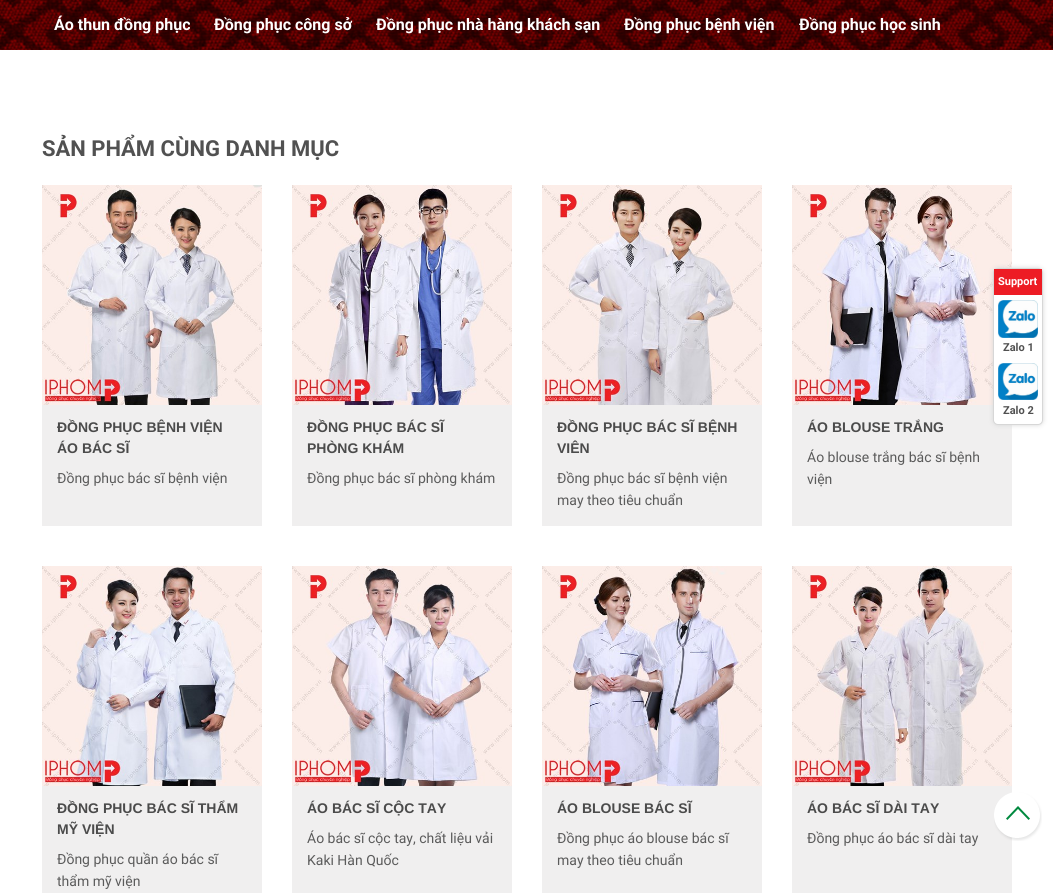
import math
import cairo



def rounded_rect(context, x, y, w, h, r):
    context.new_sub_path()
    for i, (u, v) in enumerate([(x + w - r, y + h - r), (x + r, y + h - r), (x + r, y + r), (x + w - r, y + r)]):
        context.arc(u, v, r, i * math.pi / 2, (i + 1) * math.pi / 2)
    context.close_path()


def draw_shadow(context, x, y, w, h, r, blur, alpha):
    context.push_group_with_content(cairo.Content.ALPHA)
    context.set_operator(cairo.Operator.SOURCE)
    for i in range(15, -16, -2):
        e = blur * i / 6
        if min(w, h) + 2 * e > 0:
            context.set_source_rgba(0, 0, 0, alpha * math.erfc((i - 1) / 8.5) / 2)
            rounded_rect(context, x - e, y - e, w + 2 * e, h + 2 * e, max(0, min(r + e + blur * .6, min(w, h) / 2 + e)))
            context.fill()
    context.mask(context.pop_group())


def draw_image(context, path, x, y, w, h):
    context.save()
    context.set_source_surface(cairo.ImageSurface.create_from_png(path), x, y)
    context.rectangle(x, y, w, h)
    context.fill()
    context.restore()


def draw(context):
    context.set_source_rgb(1, 1, 1)
    context.paint()
    draw_image(context, "images/1.png", 0, 0, 1053, 50)
    draw_image(context, "images/2.png", 42, 185, 220, 220)
    context.set_source_rgb(240 / 255, 239 / 255, 239 / 255)
    context.rectangle(42, 405, 220, 121)
    context.fill()
    draw_image(context, "images/3.png", 292, 185, 220, 220)
    context.rectangle(292, 405, 220, 121)
    context.fill()
    draw_image(context, "images/4.png", 542, 185, 220, 220)
    context.rectangle(542, 405, 220, 121)
    context.fill()
    draw_image(context, "images/5.png", 792, 185, 220, 220)
    context.rectangle(792, 405, 220, 121)
    context.fill()
    draw_image(context, "images/6.png", 42, 566, 220, 220)
    context.rectangle(42, 786, 220, 107)
    context.fill()
    draw_image(context, "images/7.png", 292, 566, 220, 220)
    context.rectangle(292, 786, 220, 107)
    context.fill()
    draw_image(context, "images/8.png", 542, 566, 220, 220)
    context.rectangle(542, 786, 220, 107)
    context.fill()
    draw_image(context, "images/9.png", 792, 566, 220, 220)
    context.rectangle(792, 786, 220, 107)
    context.fill()
    context.set_source_rgb(215 / 255, 215 / 255, 215 / 255)
    draw_shadow(context, 993, 268, 50, 157, 5, 2.5, 1)
    context.set_source_rgb(1, 1, 1)
    rounded_rect(context, 993.5, 268.5, 49, 156, 4.5)
    context.fill_preserve()
    context.set_source_rgb(215 / 255, 215 / 255, 215 / 255)
    context.set_line_width(1)
    context.stroke()
    context.set_source_rgb(237 / 255, 28 / 255, 36 / 255)
    context.rectangle(994, 269, 48, 26)
    context.fill()
    draw_image(context, "images/10.png", 998, 300, 40, 38)
    draw_image(context, "images/11.png", 998, 363, 40, 37)
    draw_image(context, "images/12.png", 994, 792, 48, 49)
    context.select_font_face("Roboto", cairo.FontSlant.NORMAL, cairo.FontWeight.BOLD)
    context.set_font_size(16)
    context.set_source_rgb(1, 1, 1)
    context.move_to(54, 30)
    context.show_text("Áo thun đồng phục")
    context.move_to(214, 30)
    context.show_text("Đồng phục công sở")
    context.move_to(376, 30)
    context.show_text("Đồng phục nhà hàng khách sạn")
    context.move_to(624, 30)
    context.show_text("Đồng phục bệnh viện")
    context.move_to(799, 30)
    context.show_text("Đồng phục học sinh")
    context.set_font_size(22)
    context.set_source_rgb(81 / 255, 81 / 255, 81 / 255)
    context.move_to(42, 156)
    context.show_text("SẢN PHẨM CÙNG DANH MỤC")
    context.select_font_face("Liberation Sans", cairo.FontSlant.NORMAL, cairo.FontWeight.BOLD)
    context.set_font_size(14)
    context.set_source_rgb(75 / 255, 75 / 255, 75 / 255)
    context.move_to(57, 432)
    context.show_text("ĐỒNG PHỤC BỆNH VIỆN")
    context.move_to(57, 453)
    context.show_text("ÁO BÁC SĨ")
    context.select_font_face("Roboto")
    context.set_source_rgb(91 / 255, 91 / 255, 91 / 255)
    context.move_to(57, 483)
    context.show_text("Đồng phục bác sĩ bệnh viện")
    context.select_font_face("Liberation Sans", cairo.FontSlant.NORMAL, cairo.FontWeight.BOLD)
    context.set_source_rgb(75 / 255, 75 / 255, 75 / 255)
    context.move_to(307, 432)
    context.show_text("ĐỒNG PHỤC BÁC SĨ")
    context.move_to(307, 453)
    context.show_text("PHÒNG KHÁM")
    context.select_font_face("Roboto")
    context.set_source_rgb(91 / 255, 91 / 255, 91 / 255)
    context.move_to(307, 483)
    context.show_text("Đồng phục bác sĩ phòng khám")
    context.select_font_face("Liberation Sans", cairo.FontSlant.NORMAL, cairo.FontWeight.BOLD)
    context.set_source_rgb(75 / 255, 75 / 255, 75 / 255)
    context.move_to(557, 432)
    context.show_text("ĐỒNG PHỤC BÁC SĨ BỆNH")
    context.move_to(557, 453)
    context.show_text("VIÊN")
    context.select_font_face("Roboto")
    context.set_source_rgb(91 / 255, 91 / 255, 91 / 255)
    context.move_to(557, 483)
    context.show_text("Đồng phục bác sĩ bệnh viện")
    context.move_to(557, 505)
    context.show_text("may theo tiêu chuẩn")
    context.select_font_face("Liberation Sans", cairo.FontSlant.NORMAL, cairo.FontWeight.BOLD)
    context.set_source_rgb(75 / 255, 75 / 255, 75 / 255)
    context.move_to(807, 432)
    context.show_text("ÁO BLOUSE TRẮNG")
    context.select_font_face("Roboto")
    context.set_source_rgb(91 / 255, 91 / 255, 91 / 255)
    context.move_to(807, 462)
    context.show_text("Áo blouse trắng bác sĩ bệnh")
    context.move_to(807, 484)
    context.show_text("viện")
    context.select_font_face("Liberation Sans", cairo.FontSlant.NORMAL, cairo.FontWeight.BOLD)
    context.set_source_rgb(75 / 255, 75 / 255, 75 / 255)
    context.move_to(57, 813)
    context.show_text("ĐỒNG PHỤC BÁC SĨ THẨM")
    context.move_to(57, 834)
    context.show_text("MỸ VIỆN")
    context.select_font_face("Roboto")
    context.set_source_rgb(91 / 255, 91 / 255, 91 / 255)
    context.move_to(57, 864)
    context.show_text("Đồng phục quần áo bác sĩ")
    context.move_to(57, 886)
    context.show_text("thẩm mỹ viện")
    context.select_font_face("Liberation Sans", cairo.FontSlant.NORMAL, cairo.FontWeight.BOLD)
    context.set_source_rgb(75 / 255, 75 / 255, 75 / 255)
    context.move_to(307, 813)
    context.show_text("ÁO BÁC SĨ CỘC TAY")
    context.select_font_face("Roboto")
    context.set_source_rgb(91 / 255, 91 / 255, 91 / 255)
    context.move_to(307, 843)
    context.show_text("Áo bác sĩ cộc tay, chất liệu vải")
    context.move_to(307, 865)
    context.show_text("Kaki Hàn Quốc")
    context.select_font_face("Liberation Sans", cairo.FontSlant.NORMAL, cairo.FontWeight.BOLD)
    context.set_source_rgb(75 / 255, 75 / 255, 75 / 255)
    context.move_to(557, 813)
    context.show_text("ÁO BLOUSE BÁC SĨ")
    context.select_font_face("Roboto")
    context.set_source_rgb(91 / 255, 91 / 255, 91 / 255)
    context.move_to(557, 843)
    context.show_text("Đồng phục áo blouse bác sĩ")
    context.move_to(557, 865)
    context.show_text("may theo tiêu chuẩn")
    context.select_font_face("Liberation Sans", cairo.FontSlant.NORMAL, cairo.FontWeight.BOLD)
    context.set_source_rgb(75 / 255, 75 / 255, 75 / 255)
    context.move_to(807, 813)
    context.show_text("ÁO BÁC SĨ DÀI TAY")
    context.select_font_face("Roboto")
    context.set_source_rgb(91 / 255, 91 / 255, 91 / 255)
    context.move_to(807, 843)
    context.show_text("Đồng phục áo bác sĩ dài tay")
    context.select_font_face("Roboto", cairo.FontSlant.NORMAL, cairo.FontWeight.BOLD)
    context.set_font_size(11)
    context.set_source_rgb(1, 1, 1)
    context.move_to(998, 285)
    context.show_text("Support")
    context.set_source_rgb(81 / 255, 81 / 255, 81 / 255)
    context.move_to(1003, 351)
    context.show_text("Zalo 1")
    context.move_to(1003, 414)
    context.show_text("Zalo 2")


surface = cairo.ImageSurface(cairo.Format.RGB24, 1053, 893)
context = cairo.Context(surface)
options = cairo.FontOptions()
options.set_hint_metrics(cairo.HintMetrics.OFF)
options.set_hint_style(cairo.HintStyle.NONE)
context.set_font_options(options)
context.set_miter_limit(4)
draw(context)
surface.write_to_png("out.png")
